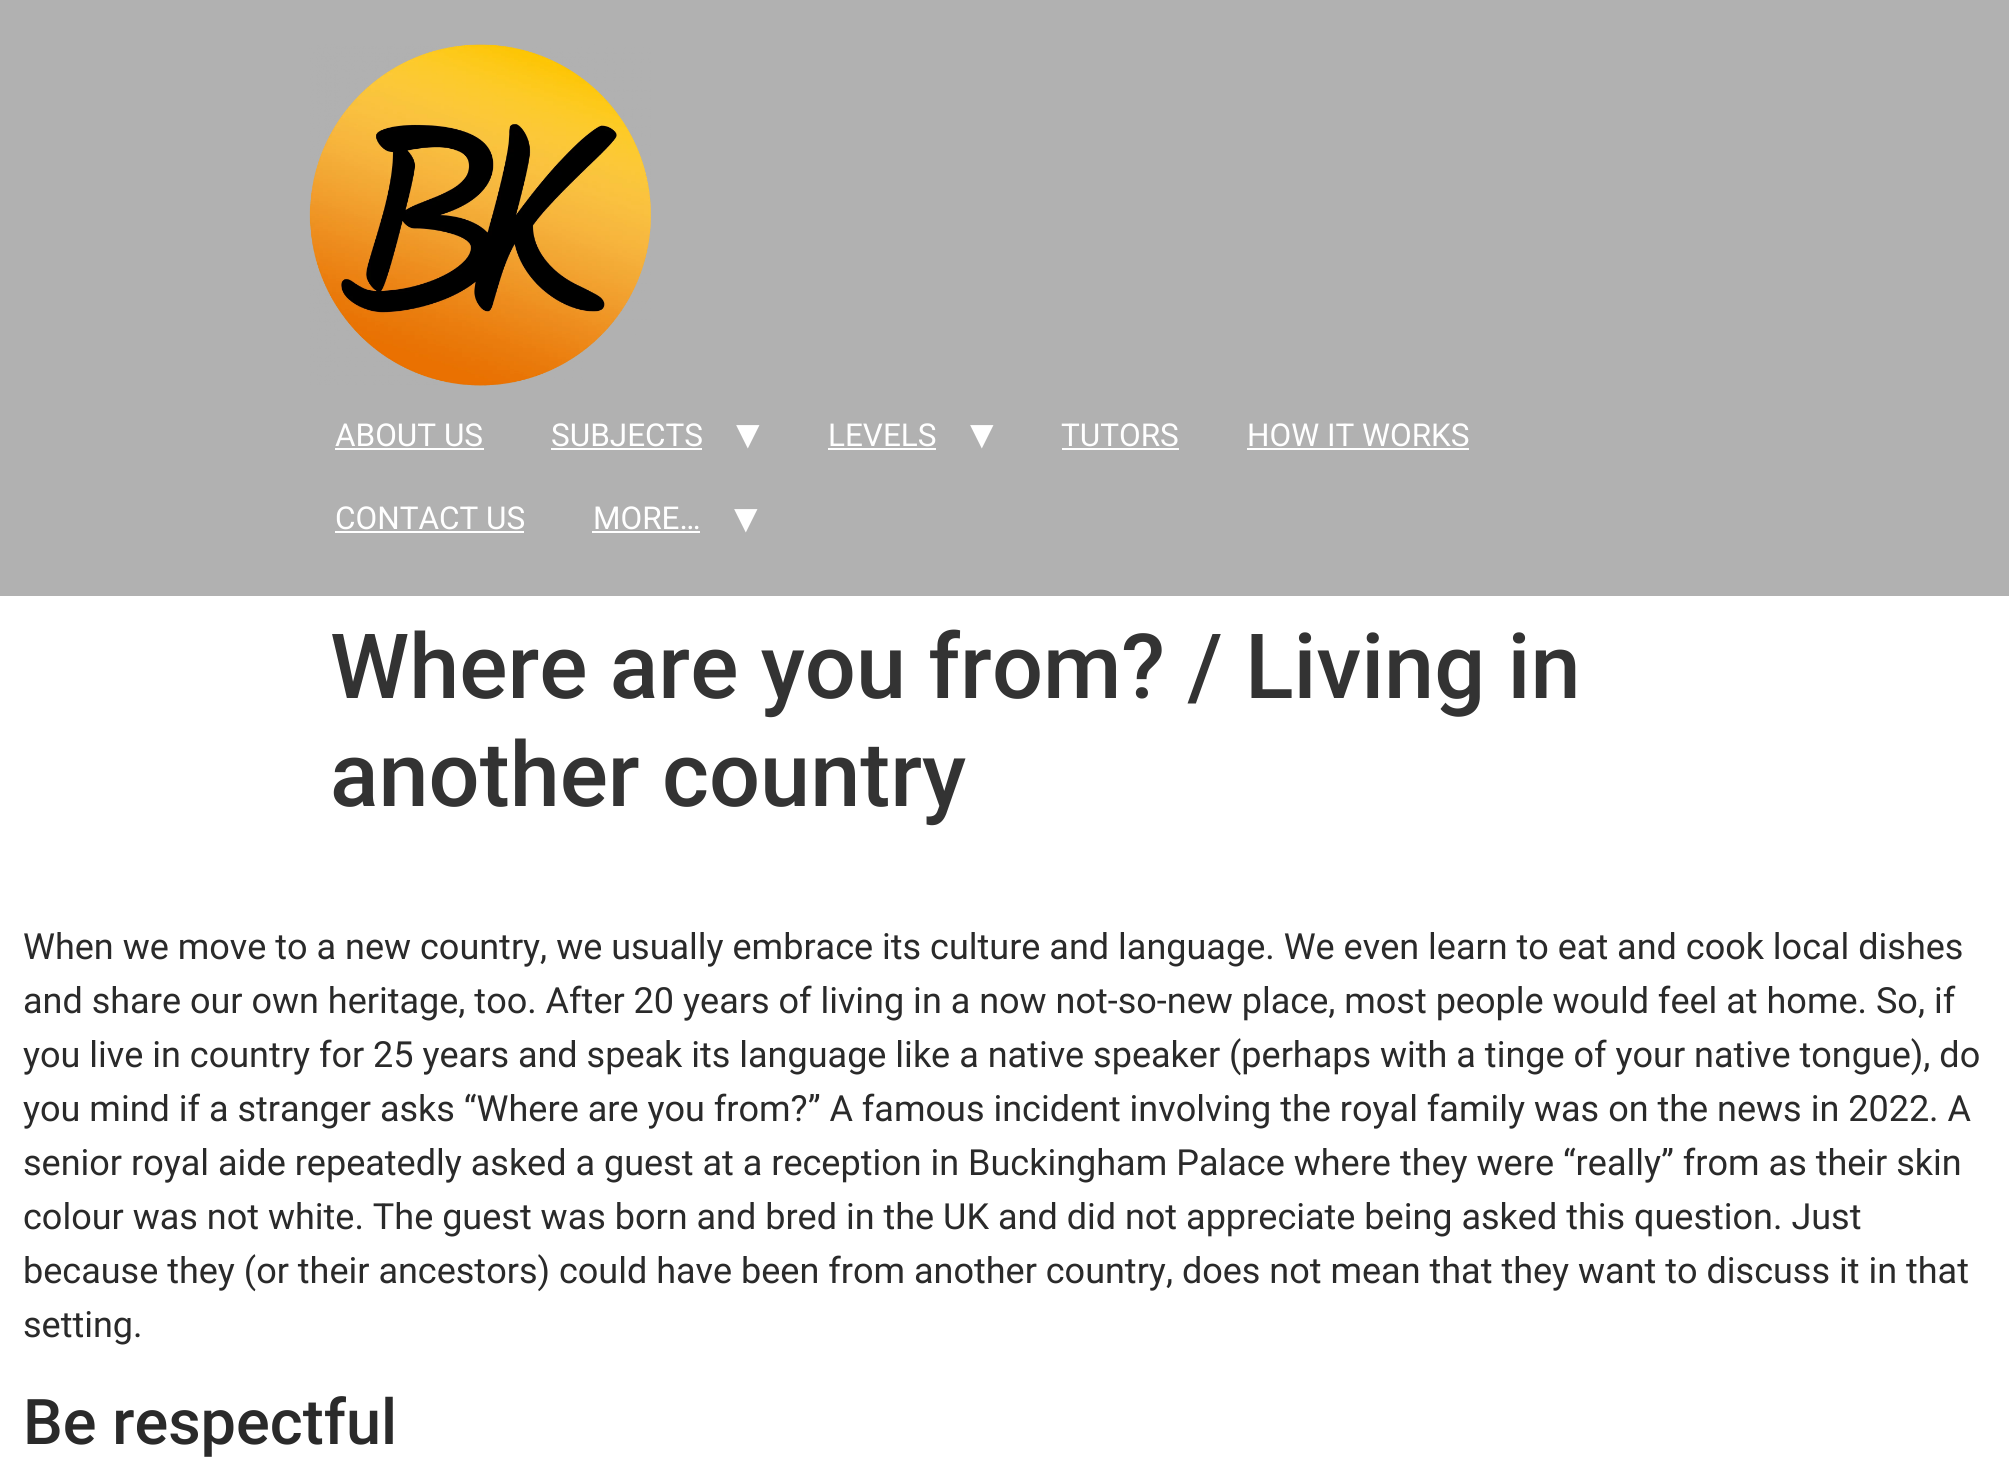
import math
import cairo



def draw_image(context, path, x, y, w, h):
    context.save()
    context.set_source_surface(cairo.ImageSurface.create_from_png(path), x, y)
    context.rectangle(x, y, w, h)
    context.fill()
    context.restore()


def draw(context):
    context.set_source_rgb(1, 1, 1)
    context.paint()
    context.set_source_rgb(177 / 255, 177 / 255, 177 / 255)
    context.rectangle(0, 0, 2009, 596)
    context.fill()
    draw_image(context, "images/1.png", 309, 44, 342, 342)
    context.set_source_rgb(1, 1, 1)
    context.rectangle(335, 448, 149, 2)
    context.fill()
    context.rectangle(551, 448, 151, 2)
    context.fill()
    context.rectangle(828, 448, 108, 2)
    context.fill()
    context.rectangle(1062, 448, 117, 2)
    context.fill()
    context.rectangle(1247, 448, 222, 2)
    context.fill()
    context.rectangle(335, 531, 189, 2)
    context.fill()
    context.rectangle(592, 531, 108, 2)
    context.fill()
    context.select_font_face("Roboto")
    context.set_font_size(31.5)
    context.move_to(335, 446)
    context.show_text("ABOUT US")
    context.move_to(551, 446)
    context.show_text("SUBJECTS")
    context.select_font_face("DejaVu Sans")
    context.set_font_size(47)
    context.move_to(736, 449)
    context.show_text("▾")
    context.select_font_face("Roboto")
    context.set_font_size(31.5)
    context.move_to(828, 446)
    context.show_text("LEVELS")
    context.select_font_face("DejaVu Sans")
    context.set_font_size(47)
    context.move_to(970, 449)
    context.show_text("▾")
    context.select_font_face("Roboto")
    context.set_font_size(31.5)
    context.move_to(1061, 446)
    context.show_text("TUTORS")
    context.move_to(1247, 446)
    context.show_text("HOW IT WORKS")
    context.move_to(335, 529)
    context.show_text("CONTACT US")
    context.move_to(593, 529)
    context.show_text("MORE…")
    context.select_font_face("DejaVu Sans")
    context.set_font_size(47)
    context.move_to(734, 533)
    context.show_text("▾")
    context.select_font_face("Roboto Medium")
    context.set_font_size(90)
    context.set_source_rgb(51 / 255, 51 / 255, 51 / 255)
    context.move_to(330, 698)
    context.show_text("Where are you from? / Living in")
    context.move_to(330, 806)
    context.show_text("another country")
    context.select_font_face("Roboto")
    context.set_font_size(36)
    context.set_source_rgb(42 / 255, 42 / 255, 42 / 255)
    context.move_to(23, 959)
    context.show_text("When we move to a new country, we usually embrace its culture and language. We even learn to eat and cook local dishes")
    context.move_to(23, 1013)
    context.show_text("and share our own heritage, too. After 20 years of living in a now not-so-new place, most people would feel at home. So, if")
    context.move_to(23, 1067)
    context.show_text("you live in country for 25 years and speak its language like a native speaker (perhaps with a tinge of your native tongue), do")
    context.move_to(23, 1121)
    context.show_text("you mind if a stranger asks “Where are you from?” A famous incident involving the royal family was on the news in 2022. A")
    context.move_to(23, 1175)
    context.show_text("senior royal aide repeatedly asked a guest at a reception in Buckingham Palace where they were “really” from as their skin")
    context.move_to(23, 1229)
    context.show_text("colour was not white. The guest was born and bred in the UK and did not appreciate being asked this question. Just")
    context.move_to(23, 1283)
    context.show_text("because they (or their ancestors) could have been from another country, does not mean that they want to discuss it in that")
    context.move_to(23, 1337)
    context.show_text("setting.")
    context.select_font_face("Roboto Medium")
    context.set_font_size(63)
    context.move_to(23, 1444)
    context.show_text("Be respectful")


surface = cairo.ImageSurface(cairo.Format.RGB24, 2009, 1474)
context = cairo.Context(surface)
options = cairo.FontOptions()
options.set_hint_metrics(cairo.HintMetrics.OFF)
options.set_hint_style(cairo.HintStyle.NONE)
context.set_font_options(options)
context.set_miter_limit(4)
draw(context)
surface.write_to_png("out.png")
